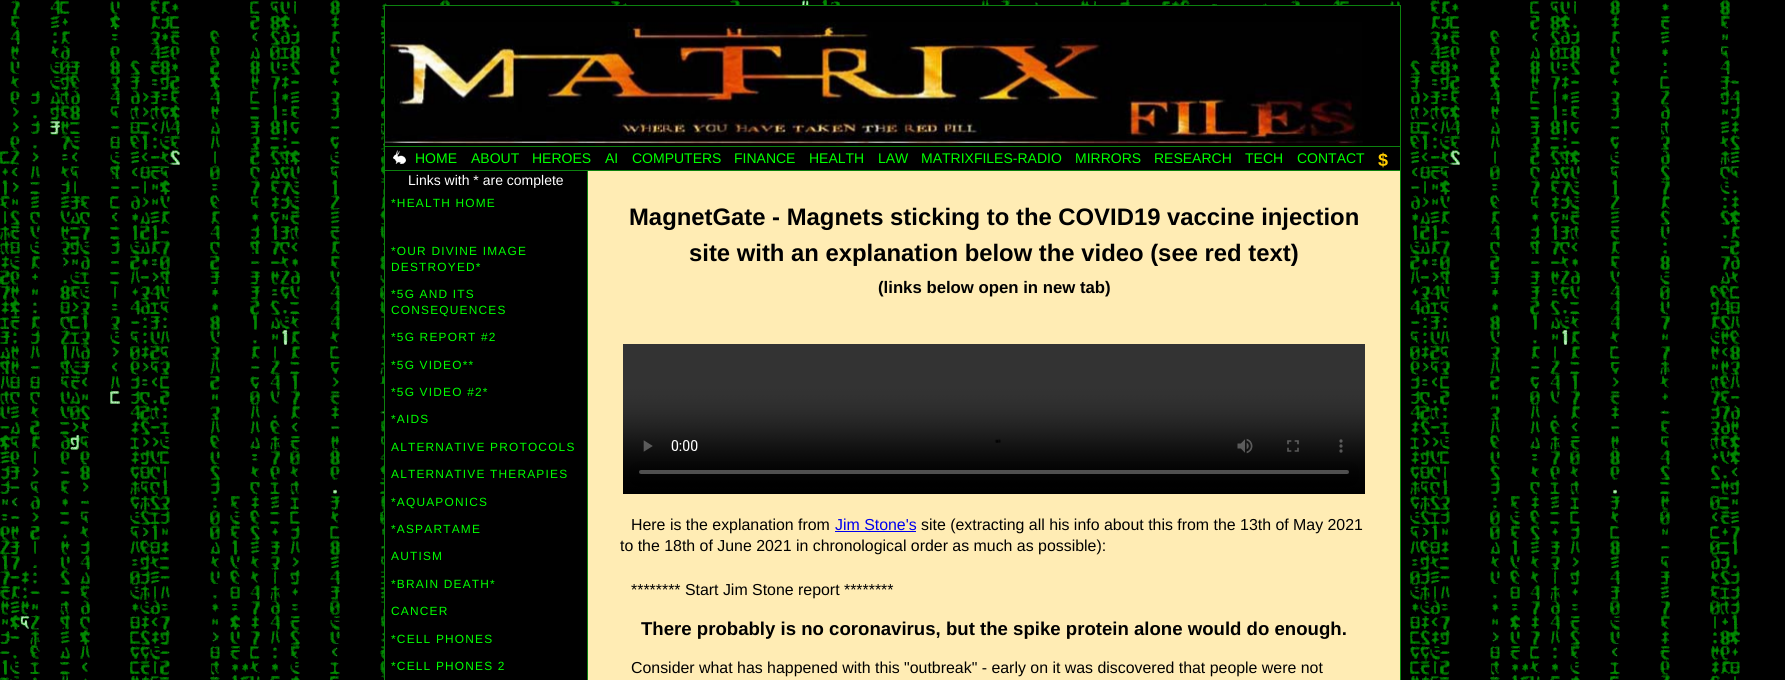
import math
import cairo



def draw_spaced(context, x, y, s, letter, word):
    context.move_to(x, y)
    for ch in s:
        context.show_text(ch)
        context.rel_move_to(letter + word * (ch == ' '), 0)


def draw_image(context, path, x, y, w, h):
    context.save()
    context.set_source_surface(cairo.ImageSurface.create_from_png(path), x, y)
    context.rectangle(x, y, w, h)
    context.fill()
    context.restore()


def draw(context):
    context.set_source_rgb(0, 0, 0)
    context.paint()
    draw_image(context, "images/1.png", 0, 0, 1740, 680)
    context.rectangle(384.5, 5.5, 1016, 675)
    context.set_source_rgb(12 / 255, 129 / 255, 15 / 255)
    context.set_line_width(1)
    context.stroke()
    context.set_source_rgb(0, 0, 0)
    context.rectangle(385, 6, 1015, 164)
    context.fill()
    draw_image(context, "images/2.png", 385, 22, 978, 124)
    context.set_source_rgb(12 / 255, 129 / 255, 15 / 255)
    context.rectangle(385, 146, 1015, 1)
    context.fill()
    draw_image(context, "images/3.png", 393, 150, 13, 14)
    context.set_source_rgb(1, 236 / 255, 180 / 255)
    context.rectangle(588, 171, 812, 509)
    context.fill()
    context.set_source_rgb(0, 0, 0)
    context.rectangle(385, 171, 175, 509)
    context.fill()
    context.set_source_rgb(12 / 255, 129 / 255, 15 / 255)
    context.rectangle(385, 170, 1015, 1)
    context.fill()
    context.rectangle(587, 170, 1, 510)
    context.fill()
    draw_image(context, "images/4.png", 623, 344, 742, 150)
    context.set_source_rgb(0, 0, 238 / 255)
    context.rectangle(835, 531, 81, 1)
    context.fill()
    context.select_font_face("Liberation Sans")
    context.set_font_size(14)
    context.set_source_rgb(0, 1, 0)
    context.move_to(415, 163)
    context.show_text("HOME")
    context.move_to(471, 163)
    context.show_text("ABOUT")
    context.move_to(532, 163)
    context.show_text("HEROES")
    context.move_to(605, 163)
    context.show_text("AI")
    context.move_to(632, 163)
    context.show_text("COMPUTERS")
    context.move_to(734, 163)
    context.show_text("FINANCE")
    context.move_to(809, 163)
    context.show_text("HEALTH")
    context.move_to(878, 163)
    context.show_text("LAW")
    context.move_to(921, 163)
    context.show_text("MATRIXFILES-RADIO")
    context.move_to(1075, 163)
    context.show_text("MIRRORS")
    context.move_to(1154, 163)
    context.show_text("RESEARCH")
    context.move_to(1245, 163)
    context.show_text("TECH")
    context.move_to(1297, 163)
    context.show_text("CONTACT")
    context.select_font_face("Liberation Sans", cairo.FontSlant.NORMAL, cairo.FontWeight.BOLD)
    context.set_font_size(18)
    context.set_source_rgb(1, 204 / 255, 0)
    context.move_to(1378, 166)
    context.show_text("$")
    context.select_font_face("Liberation Sans")
    context.set_font_size(14)
    context.set_source_rgb(1, 1, 1)
    context.move_to(408, 185)
    context.show_text("Links with * are complete")
    context.set_font_size(11.9)
    context.set_source_rgb(0, 1, 0)
    draw_spaced(context, 391, 207, "*HEALTH HOME", 1.2, 0)
    draw_spaced(context, 391, 255, "*OUR DIVINE IMAGE", 1.2, 0)
    draw_spaced(context, 391, 271, "DESTROYED*", 1.2, 0)
    draw_spaced(context, 391, 298, "*5G AND ITS", 1.2, 0)
    draw_spaced(context, 391, 314, "CONSEQUENCES", 1.2, 0)
    draw_spaced(context, 391, 341, "*5G REPORT #2", 1.2, 0)
    draw_spaced(context, 391, 369, "*5G VIDEO**", 1.2, 0)
    draw_spaced(context, 391, 396, "*5G VIDEO #2*", 1.2, 0)
    draw_spaced(context, 391, 423, "*AIDS", 1.2, 0)
    draw_spaced(context, 391, 451, "ALTERNATIVE PROTOCOLS", 1.2, 0)
    draw_spaced(context, 391, 478, "ALTERNATIVE THERAPIES", 1.2, 0)
    draw_spaced(context, 391, 506, "*AQUAPONICS", 1.2, 0)
    draw_spaced(context, 391, 533, "*ASPARTAME", 1.2, 0)
    draw_spaced(context, 391, 560, "AUTISM", 1.2, 0)
    draw_spaced(context, 391, 588, "*BRAIN DEATH*", 1.2, 0)
    draw_spaced(context, 391, 615, "CANCER", 1.2, 0)
    draw_spaced(context, 391, 643, "*CELL PHONES", 1.2, 0)
    draw_spaced(context, 391, 670, "*CELL PHONES 2", 1.2, 0)
    context.select_font_face("Liberation Sans", cairo.FontSlant.NORMAL, cairo.FontWeight.BOLD)
    context.set_font_size(23.85)
    context.set_source_rgb(0, 0, 0)
    context.move_to(629, 225)
    context.show_text("MagnetGate - Magnets sticking to the COVID19 vaccine injection")
    context.move_to(689, 261)
    context.show_text("site with an explanation below the video (see red text)")
    context.set_font_size(16.75)
    context.move_to(878, 293)
    context.show_text("(links below open in new tab)")
    context.select_font_face("Liberation Sans")
    context.set_font_size(15.9)
    context.move_to(631, 530)
    context.show_text("Here is the explanation from")
    context.set_source_rgb(0, 0, 238 / 255)
    context.move_to(835, 530)
    context.show_text("Jim Stone's")
    context.set_source_rgb(0, 0, 0)
    context.move_to(921, 530)
    context.show_text("site (extracting all his info about this from the 13th of May 2021")
    context.move_to(620, 551)
    context.show_text("to the 18th of June 2021 in chronological order as much as possible):")
    context.move_to(631, 595)
    context.show_text("******** Start Jim Stone report ********")
    context.select_font_face("Liberation Sans", cairo.FontSlant.NORMAL, cairo.FontWeight.BOLD)
    context.set_font_size(18.6)
    context.move_to(641, 635)
    context.show_text("There probably is no coronavirus, but the spike protein alone would do enough.")
    context.select_font_face("Liberation Sans")
    context.set_font_size(15.9)
    context.move_to(631, 673)
    context.show_text("Consider what has happened with this \"outbreak\" - early on it was discovered that people were not")


surface = cairo.ImageSurface(cairo.Format.RGB24, 1785, 680)
context = cairo.Context(surface)
options = cairo.FontOptions()
options.set_hint_metrics(cairo.HintMetrics.OFF)
options.set_hint_style(cairo.HintStyle.NONE)
context.set_font_options(options)
context.set_miter_limit(4)
draw(context)
surface.write_to_png("out.png")
